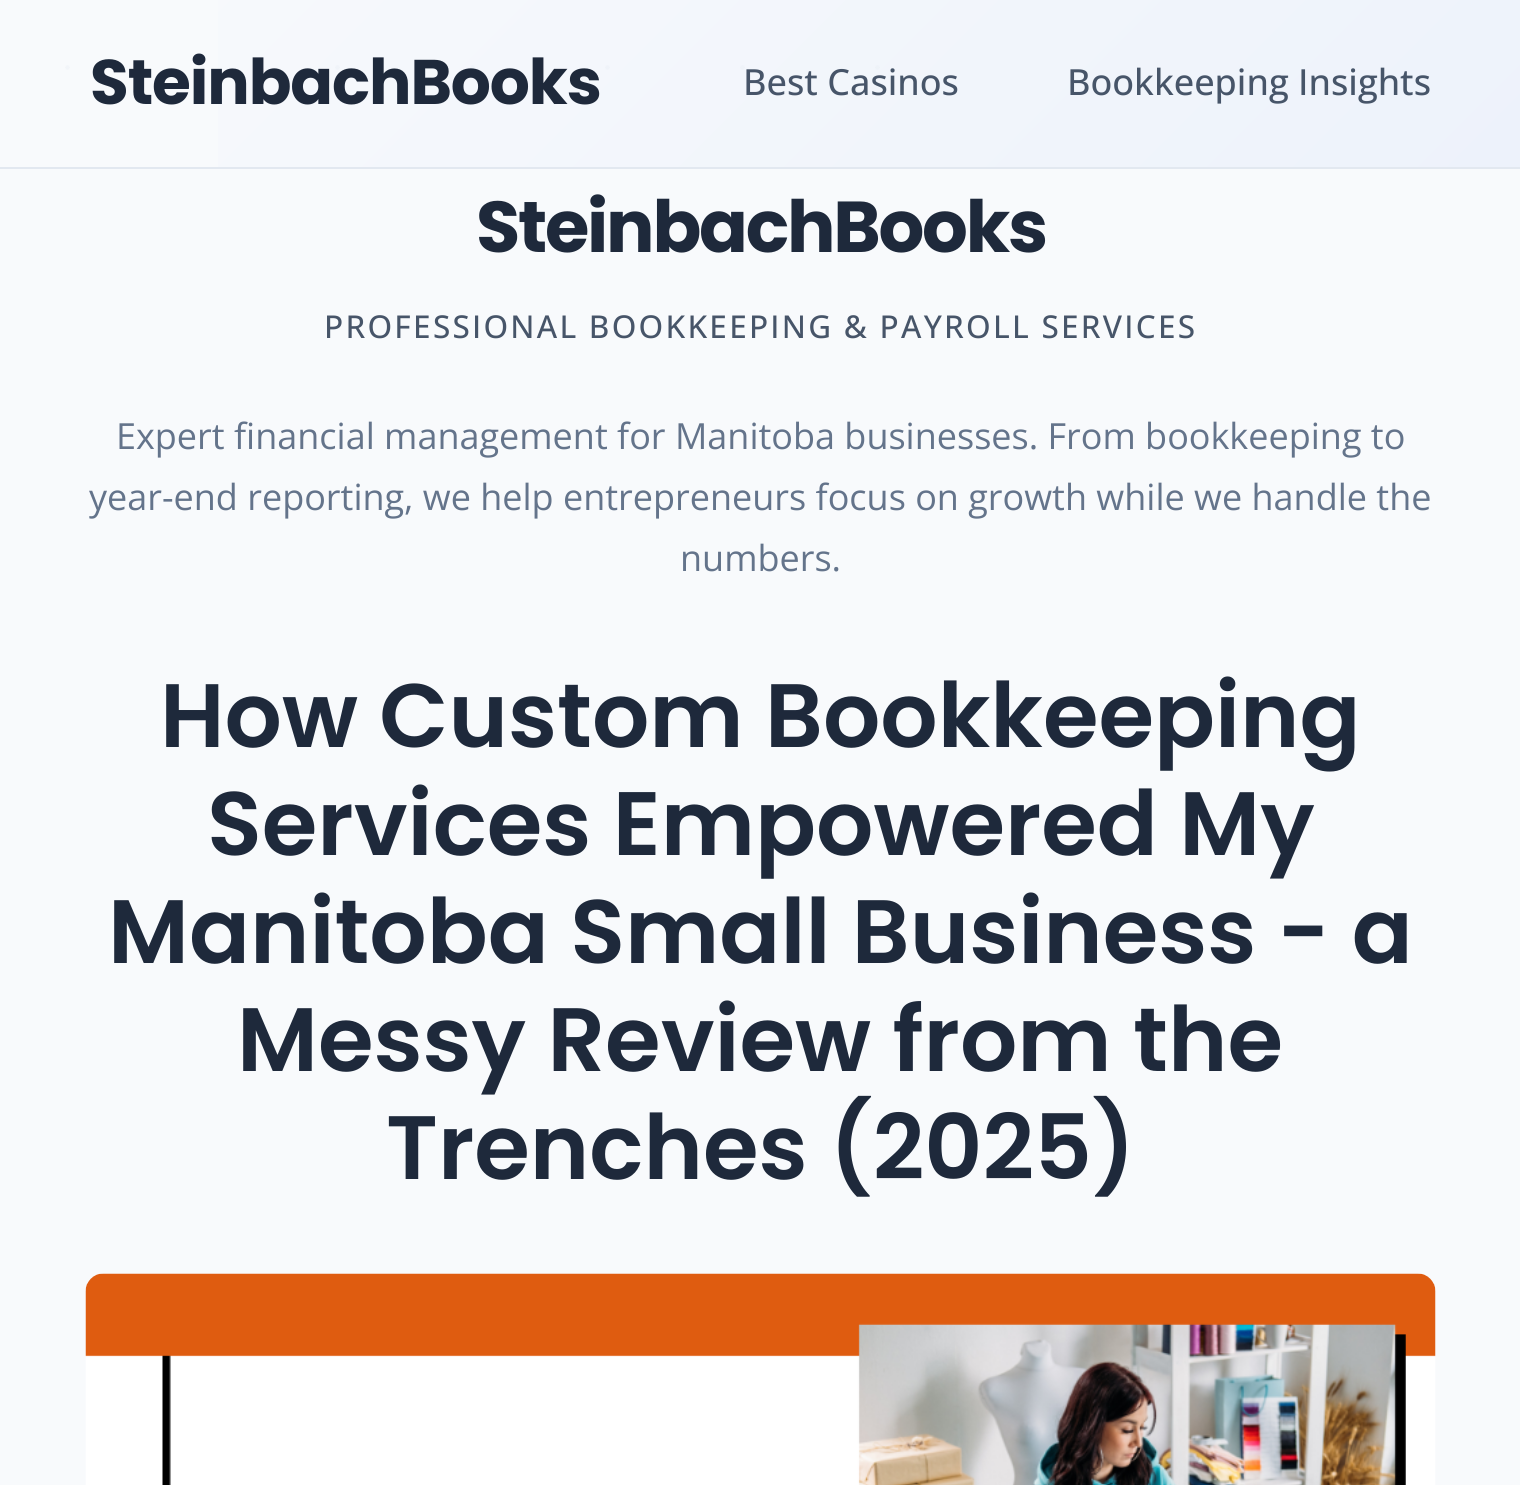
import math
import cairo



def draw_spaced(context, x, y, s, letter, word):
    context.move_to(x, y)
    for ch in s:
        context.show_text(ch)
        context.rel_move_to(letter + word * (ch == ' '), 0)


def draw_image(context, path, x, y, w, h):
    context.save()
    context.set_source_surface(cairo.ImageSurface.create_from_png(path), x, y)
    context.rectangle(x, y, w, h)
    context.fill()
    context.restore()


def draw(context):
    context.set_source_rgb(248 / 255, 250 / 255, 252 / 255)
    context.paint()
    gradient = cairo.LinearGradient(338, -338, 1183, 507)
    gradient.add_color_stop_rgba(0, 248 / 255, 250 / 255, 252 / 255, 1)
    gradient.add_color_stop_rgba(1, 237 / 255, 242 / 255, 251 / 255, 1)
    context.set_source(gradient)
    context.rectangle(218, 0, 1302, 167)
    context.fill()
    context.set_source_rgb(226 / 255, 232 / 255, 240 / 255)
    context.rectangle(0, 167, 1520, 2)
    context.fill()
    draw_image(context, "images/1.png", 65, 65, 815, 5)
    draw_image(context, "images/2.png", 85, 1273, 1351, 212)
    context.select_font_face("Poppins", cairo.FontSlant.NORMAL, cairo.FontWeight.BOLD)
    context.set_font_size(63)
    context.set_source_rgb(30 / 255, 41 / 255, 59 / 255)
    draw_spaced(context, 90, 104, "SteinbachBooks", -1.1, 0)
    context.select_font_face("Open Sans Medium")
    context.set_font_size(36)
    context.set_source_rgb(71 / 255, 85 / 255, 105 / 255)
    context.move_to(743, 95)
    context.show_text("Best Casinos")
    context.move_to(1067, 95)
    context.show_text("Bookkeeping Insights")
    context.select_font_face("Poppins", cairo.FontSlant.NORMAL, cairo.FontWeight.BOLD)
    context.set_font_size(72)
    context.set_source_rgb(30 / 255, 41 / 255, 59 / 255)
    draw_spaced(context, 476, 252, "SteinbachBooks", -2.25, 0)
    context.select_font_face("Open Sans Medium")
    context.set_font_size(31.5)
    context.set_source_rgb(71 / 255, 85 / 255, 105 / 255)
    draw_spaced(context, 324, 338, "PROFESSIONAL BOOKKEEPING & PAYROLL SERVICES", 2.25, 0)
    context.select_font_face("Open Sans")
    context.set_font_size(36)
    context.set_source_rgb(100 / 255, 116 / 255, 139 / 255)
    context.move_to(116, 449)
    context.show_text("Expert financial management for Manitoba businesses. From bookkeeping to")
    context.move_to(89, 510)
    context.show_text("year-end reporting, we help entrepreneurs focus on growth while we handle the")
    context.move_to(680, 571)
    context.show_text("numbers.")
    context.select_font_face("Poppins SemiBold")
    context.set_font_size(90)
    context.set_source_rgb(30 / 255, 41 / 255, 59 / 255)
    context.move_to(160, 747)
    context.show_text("How Custom Bookkeeping")
    context.move_to(207, 855)
    context.show_text("Services Empowered My")
    context.move_to(108, 963)
    context.show_text("Manitoba Small Business - a")
    context.move_to(237, 1071)
    context.show_text("Messy Review from the")
    context.move_to(386, 1179)
    context.show_text("Trenches (2025)")


surface = cairo.ImageSurface(cairo.Format.RGB24, 1520, 1485)
context = cairo.Context(surface)
options = cairo.FontOptions()
options.set_hint_metrics(cairo.HintMetrics.OFF)
options.set_hint_style(cairo.HintStyle.NONE)
context.set_font_options(options)
context.set_miter_limit(4)
draw(context)
surface.write_to_png("out.png")
